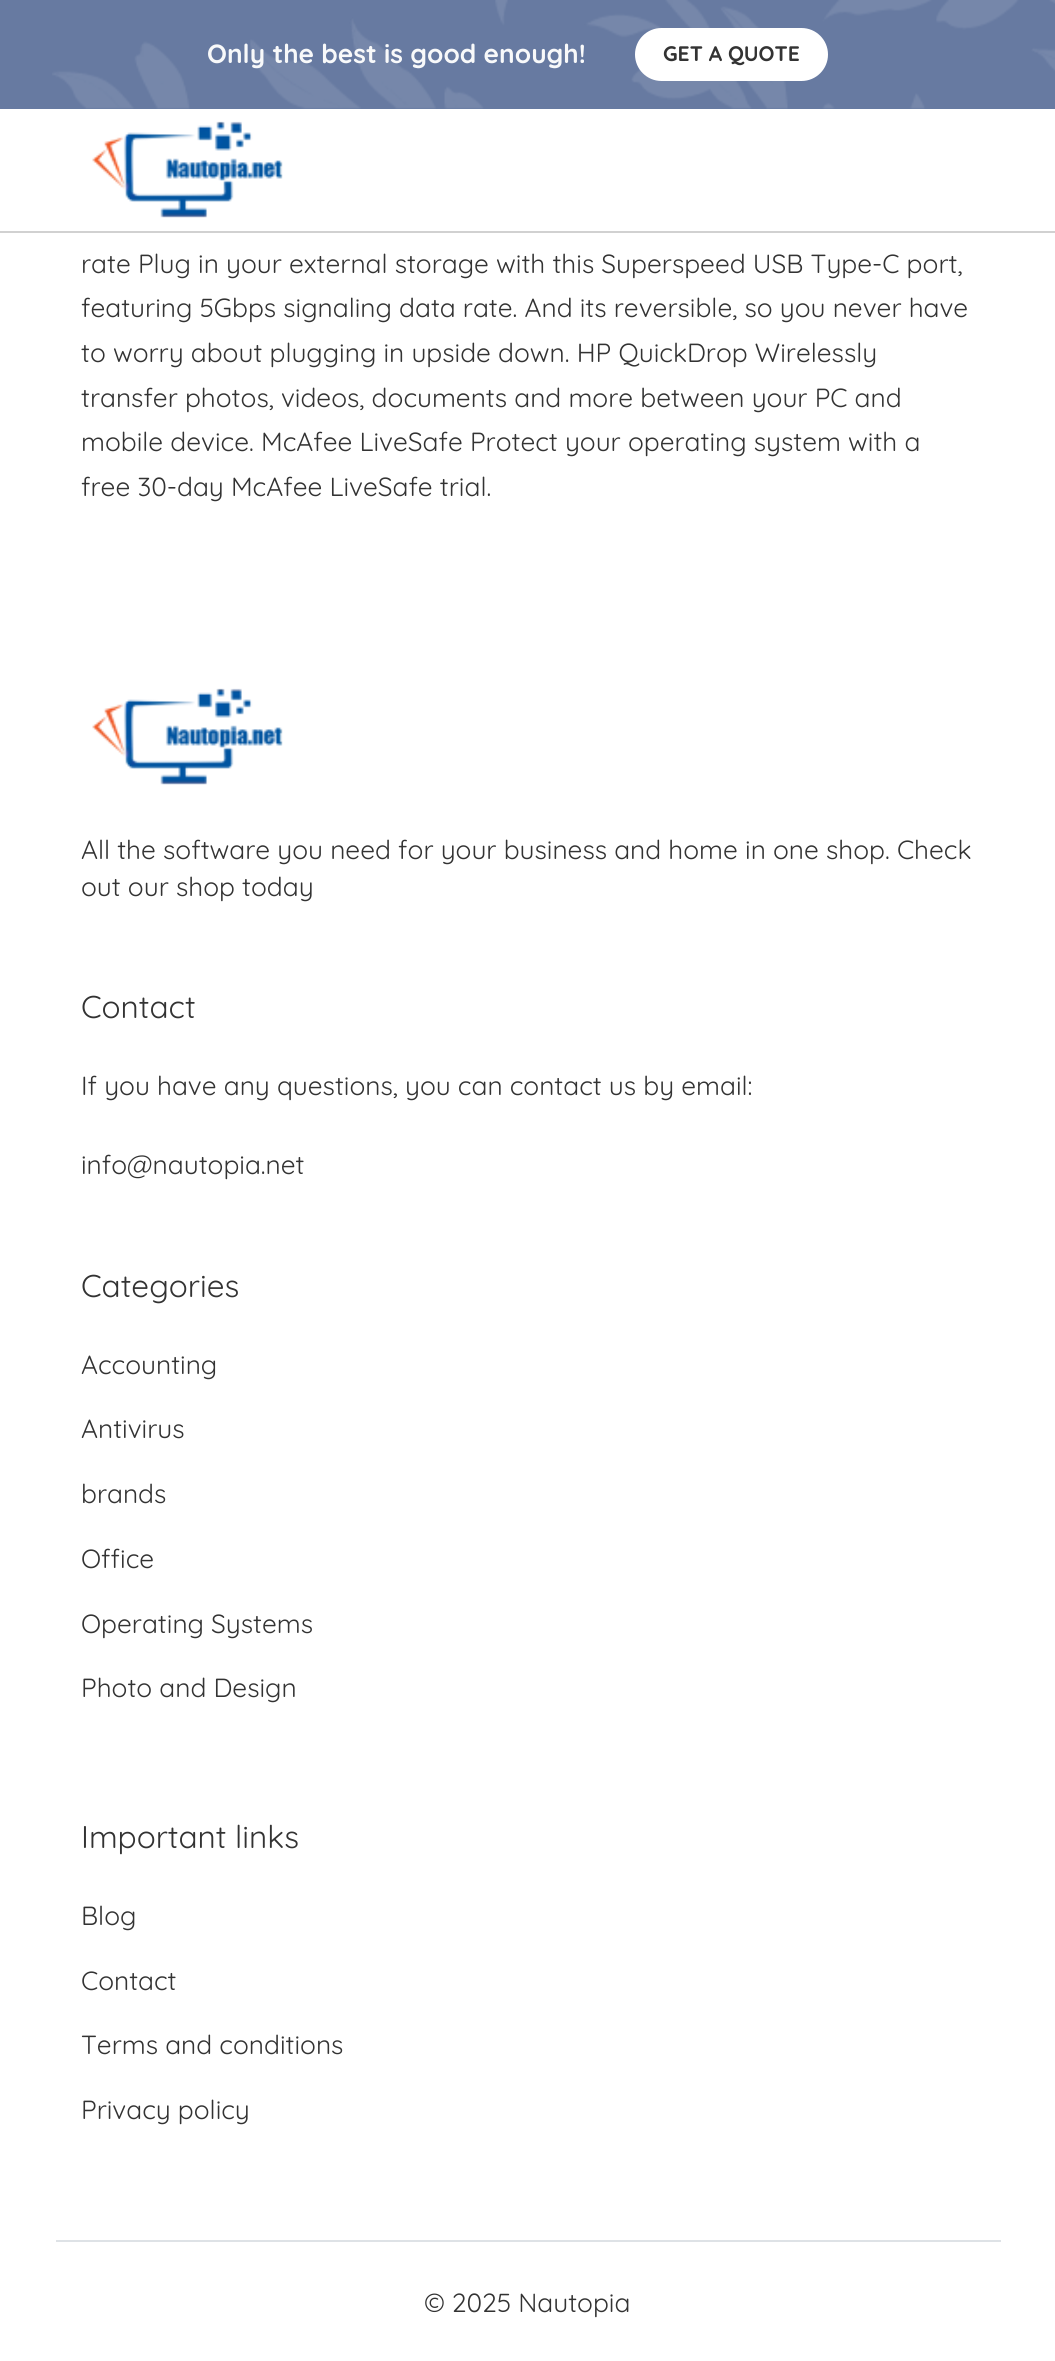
import math
import cairo



def rounded_rect(context, x, y, w, h, r):
    context.new_sub_path()
    for i, (u, v) in enumerate([(x + w - r, y + h - r), (x + r, y + h - r), (x + r, y + r), (x + w - r, y + r)]):
        context.arc(u, v, r, i * math.pi / 2, (i + 1) * math.pi / 2)
    context.close_path()


def draw_image(context, path, x, y, w, h):
    context.save()
    context.set_source_surface(cairo.ImageSurface.create_from_png(path), x, y)
    context.rectangle(x, y, w, h)
    context.fill()
    context.restore()


def draw(context):
    context.set_source_rgb(1, 1, 1)
    context.paint()
    context.set_source_rgb(209 / 255, 209 / 255, 209 / 255)
    context.rectangle(0, 231, 1055, 2)
    context.fill()
    context.set_source_rgb(103 / 255, 122 / 255, 161 / 255)
    context.rectangle(0, 0, 52, 109)
    context.fill()
    draw_image(context, "images/1.png", 52, 0, 1003, 109)
    context.set_source_rgb(1, 1, 1)
    rounded_rect(context, 636, 29, 191, 51, 25.5)
    context.fill_preserve()
    context.stroke()
    draw_image(context, "images/2.png", 92, 121, 191, 97)
    context.set_source_rgb(222 / 255, 226 / 255, 230 / 255)
    context.rectangle(56, 2240, 945, 2)
    context.fill()
    draw_image(context, "images/3.png", 92, 688, 191, 97)
    context.select_font_face("Quicksand", cairo.FontSlant.NORMAL, cairo.FontWeight.BOLD)
    context.set_font_size(26.25)
    context.set_source_rgb(248 / 255, 249 / 255, 250 / 255)
    context.move_to(207, 63)
    context.show_text("Only the best is good enough!")
    context.set_font_size(21)
    context.set_source_rgb(51 / 255, 51 / 255, 51 / 255)
    context.move_to(663, 61)
    context.show_text("GET A QUOTE")
    context.select_font_face("Quicksand")
    context.set_font_size(26.25)
    context.move_to(81, 273)
    context.show_text("rate Plug in your external storage with this Superspeed USB Type-C port,")
    context.move_to(81, 317)
    context.show_text("featuring 5Gbps signaling data rate. And its reversible, so you never have")
    context.move_to(81, 362)
    context.show_text("to worry about plugging in upside down. HP QuickDrop Wirelessly")
    context.move_to(81, 407)
    context.show_text("transfer photos, videos, documents and more between your PC and")
    context.move_to(81, 451)
    context.show_text("mobile device. McAfee LiveSafe Protect your operating system with a")
    context.move_to(81, 496)
    context.show_text("free 30-day McAfee LiveSafe trial.")
    context.move_to(81, 859)
    context.show_text("All the software you need for your business and home in one shop. Check")
    context.move_to(81, 896)
    context.show_text("out our shop today")
    context.set_font_size(31.5)
    context.move_to(81, 1018)
    context.show_text("Contact")
    context.set_font_size(26.25)
    context.move_to(81, 1095)
    context.show_text("If you have any questions, you can contact us by email:")
    context.move_to(81, 1174)
    context.show_text("info@nautopia.net")
    context.set_font_size(31.5)
    context.move_to(81, 1297)
    context.show_text("Categories")
    context.set_font_size(26.25)
    context.move_to(81, 1374)
    context.show_text("Accounting")
    context.move_to(81, 1438)
    context.show_text("Antivirus")
    context.move_to(81, 1503)
    context.show_text("brands")
    context.move_to(81, 1568)
    context.show_text("Office")
    context.move_to(81, 1633)
    context.show_text("Operating Systems")
    context.move_to(81, 1697)
    context.show_text("Photo and Design")
    context.set_font_size(31.5)
    context.move_to(81, 1848)
    context.show_text("Important links")
    context.set_font_size(26.25)
    context.move_to(81, 1925)
    context.show_text("Blog")
    context.move_to(81, 1990)
    context.show_text("Contact")
    context.move_to(81, 2054)
    context.show_text("Terms and conditions")
    context.move_to(81, 2119)
    context.show_text("Privacy policy")
    context.move_to(424, 2312)
    context.show_text("© 2025 Nautopia")


surface = cairo.ImageSurface(cairo.Format.RGB24, 1055, 2361)
context = cairo.Context(surface)
options = cairo.FontOptions()
options.set_hint_metrics(cairo.HintMetrics.OFF)
options.set_hint_style(cairo.HintStyle.NONE)
context.set_font_options(options)
context.set_miter_limit(4)
draw(context)
surface.write_to_png("out.png")
